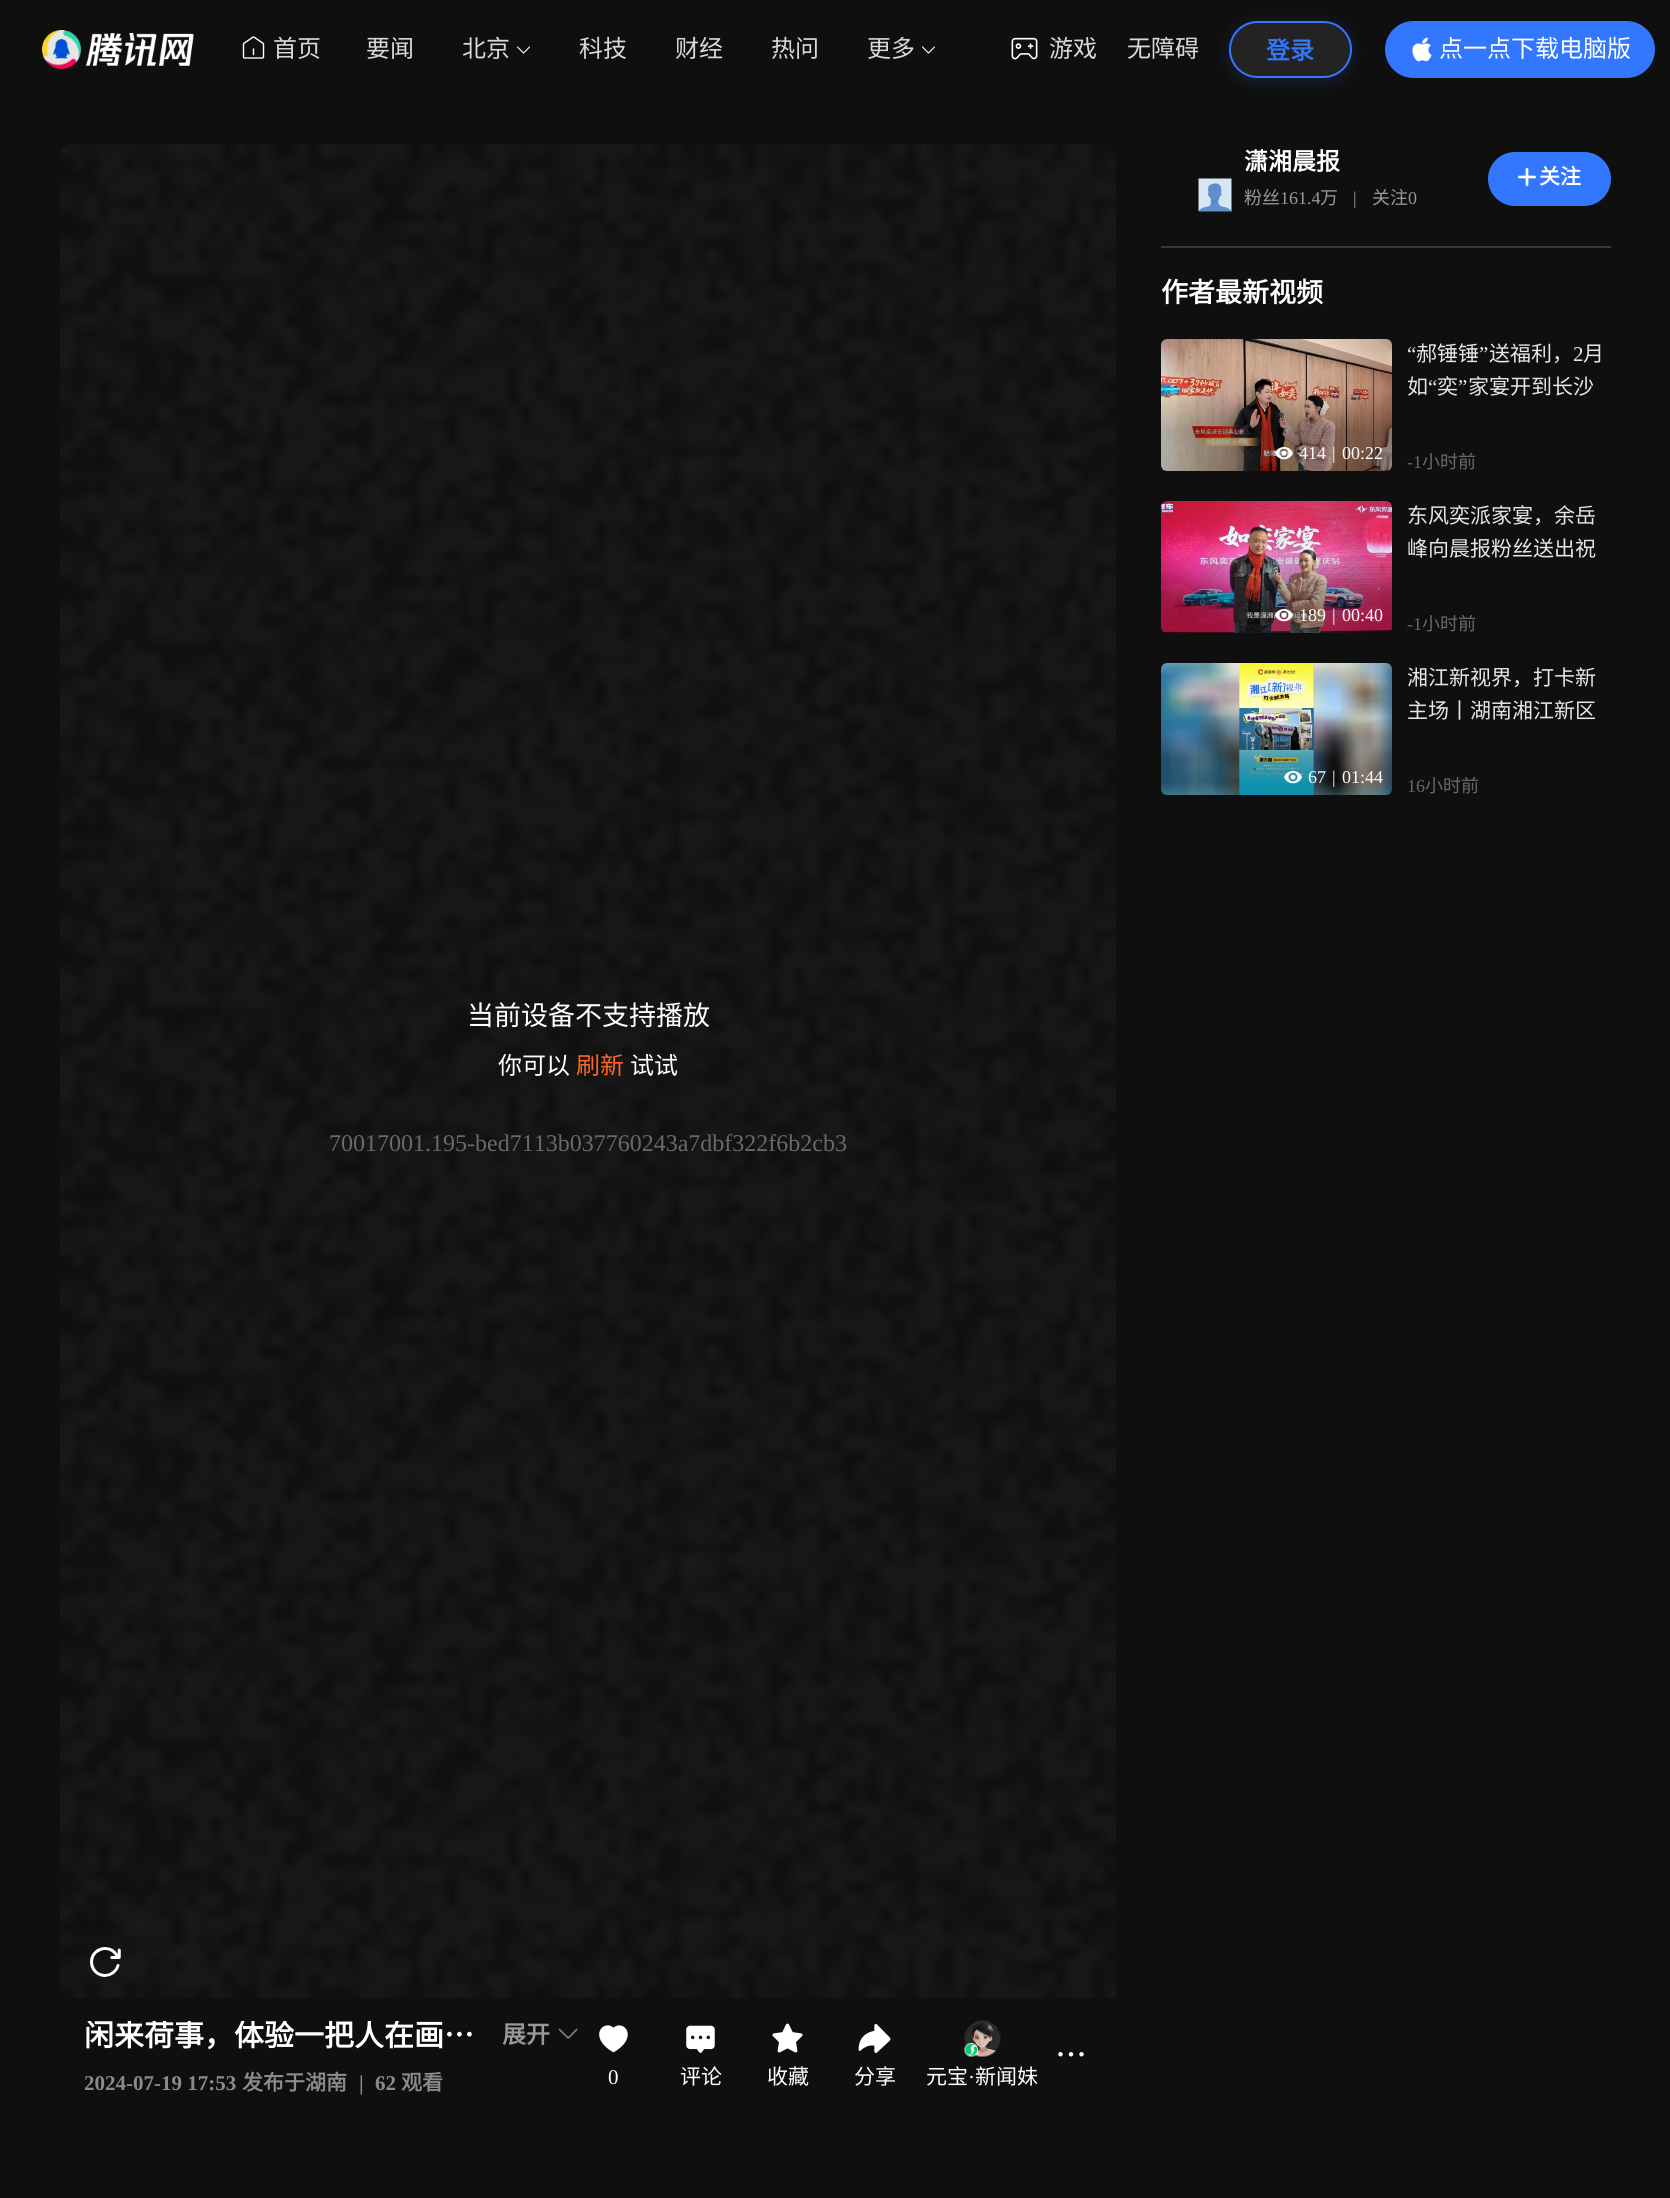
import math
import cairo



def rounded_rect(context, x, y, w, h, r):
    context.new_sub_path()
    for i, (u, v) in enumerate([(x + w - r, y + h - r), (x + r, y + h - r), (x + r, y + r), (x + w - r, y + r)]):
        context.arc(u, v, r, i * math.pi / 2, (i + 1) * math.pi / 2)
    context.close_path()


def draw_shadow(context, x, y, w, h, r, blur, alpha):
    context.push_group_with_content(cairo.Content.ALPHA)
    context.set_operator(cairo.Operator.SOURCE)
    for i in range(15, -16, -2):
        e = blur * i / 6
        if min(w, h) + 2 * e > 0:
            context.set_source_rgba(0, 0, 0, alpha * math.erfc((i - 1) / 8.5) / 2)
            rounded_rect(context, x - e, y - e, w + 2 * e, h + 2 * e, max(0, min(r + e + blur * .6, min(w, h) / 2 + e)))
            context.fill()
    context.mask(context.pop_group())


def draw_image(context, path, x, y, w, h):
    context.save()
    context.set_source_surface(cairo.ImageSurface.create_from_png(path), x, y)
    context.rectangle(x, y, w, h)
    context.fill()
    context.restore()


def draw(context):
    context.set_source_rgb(15 / 255, 15 / 255, 15 / 255)
    context.paint()
    draw_image(context, "images/1.png", 42, 30, 152, 39)
    draw_image(context, "images/2.png", 242, 36, 23, 23)
    context.new_path()
    context.move_to(529.5, 47)
    context.line_to(523.5, 53)
    context.line_to(517.5, 47)
    context.set_source_rgb(1, 1, 1)
    context.set_line_width(1.1)
    context.set_line_cap(cairo.LineCap.ROUND)
    context.set_line_join(cairo.LineJoin.ROUND)
    context.stroke()
    context.new_path()
    context.move_to(934.5, 47)
    context.line_to(928.5, 53)
    context.line_to(922.5, 47)
    context.stroke()
    draw_image(context, "images/3.png", 1011, 37, 27, 23)
    context.save()
    context.set_fill_rule(cairo.FillRule.EVEN_ODD)
    context.new_path()
    context.move_to(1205, 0)
    context.line_to(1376, 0)
    context.line_to(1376, 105)
    context.line_to(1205, 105)
    context.close_path()
    context.move_to(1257.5, 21)
    context.line_to(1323.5, 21)
    context.curve_to(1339, 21, 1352, 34, 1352, 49.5)
    context.curve_to(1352, 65, 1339, 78, 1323.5, 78)
    context.line_to(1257.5, 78)
    context.curve_to(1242, 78, 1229, 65, 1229, 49.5)
    context.curve_to(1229, 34, 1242, 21, 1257.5, 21)
    context.close_path()
    context.clip()
    context.set_source_rgb(51 / 255, 119 / 255, 1)
    draw_shadow(context, 1229, 24, 123, 57, 28.5, 7.5, 0.16)
    context.restore()
    context.set_source_rgba(217 / 255, 217 / 255, 217 / 255, 0.1)
    rounded_rect(context, 1230, 22, 121, 55, 27.5)
    context.fill_preserve()
    context.set_source_rgb(51 / 255, 119 / 255, 1)
    context.set_line_width(2)
    context.set_line_cap(cairo.LineCap.BUTT)
    context.set_line_join(cairo.LineJoin.MITER)
    context.stroke()
    rounded_rect(context, 1385, 21, 270, 57, 28.5)
    context.fill()
    draw_image(context, "images/4.png", 1412, 37, 20, 25)
    rounded_rect(context, 1488, 152, 123, 54, 27)
    context.fill()
    draw_image(context, "images/5.png", 1518, 168, 18, 18)
    draw_image(context, "images/6.png", 1198, 178, 34, 34)
    context.set_source_rgb(56 / 255, 56 / 255, 56 / 255)
    context.rectangle(1161, 246, 450, 2)
    context.fill()
    draw_image(context, "images/7.png", 1161, 339, 231, 132)
    gradient = cairo.LinearGradient(1277, 471, 1277, 339)
    gradient.add_color_stop_rgba(0.3, 0, 0, 0, 0.3)
    gradient.add_color_stop_rgba(0.6, 0, 0, 0, 0)
    context.set_source(gradient)
    rounded_rect(context, 1161, 339, 231, 132, 6)
    context.fill()
    draw_image(context, "images/8.png", 1275, 447, 18, 13)
    draw_image(context, "images/9.png", 1161, 501, 231, 132)
    gradient = cairo.LinearGradient(1277, 633, 1277, 501)
    gradient.add_color_stop_rgba(0.3, 0, 0, 0, 0.3)
    gradient.add_color_stop_rgba(0.6, 0, 0, 0, 0)
    context.set_source(gradient)
    rounded_rect(context, 1161, 501, 231, 132, 6)
    context.fill()
    draw_image(context, "images/10.png", 1275, 609, 18, 13)
    draw_image(context, "images/11.png", 1161, 663, 231, 132)
    gradient = cairo.LinearGradient(1277, 795, 1277, 663)
    gradient.add_color_stop_rgba(0.3, 0, 0, 0, 0.3)
    gradient.add_color_stop_rgba(0.6, 0, 0, 0, 0)
    context.set_source(gradient)
    rounded_rect(context, 1161, 663, 231, 132, 6)
    context.fill()
    draw_image(context, "images/12.png", 1284, 771, 18, 13)
    draw_image(context, "images/13.png", 60, 144, 1056, 1854)
    draw_image(context, "images/14.png", 558, 2028, 20, 11)
    draw_image(context, "images/15.png", 1058, 2052, 26, 5)
    draw_image(context, "images/16.png", 599, 2025, 29, 28)
    draw_image(context, "images/17.png", 686, 2025, 29, 28)
    draw_image(context, "images/18.png", 772, 2023, 31, 30)
    draw_image(context, "images/19.png", 858, 2024, 33, 29)
    draw_image(context, "images/20.png", 964, 2020, 37, 37)
    draw_image(context, "images/21.png", 964, 2043, 14, 14)
    context.select_font_face("Noto Sans CJK SC")
    context.set_font_size(24)
    context.set_source_rgb(217 / 255, 217 / 255, 217 / 255)
    context.move_to(273, 57)
    context.show_text("首页")
    context.move_to(366, 57)
    context.show_text("要闻")
    context.move_to(462, 57)
    context.show_text("北京")
    context.move_to(579, 57)
    context.show_text("科技")
    context.move_to(675, 57)
    context.show_text("财经")
    context.move_to(771, 57)
    context.show_text("热问")
    context.move_to(867, 57)
    context.show_text("更多")
    context.move_to(1049, 57)
    context.show_text("游戏")
    context.move_to(1127, 57)
    context.show_text("无障碍")
    context.select_font_face("Noto Sans CJK SC", cairo.FontSlant.NORMAL, cairo.FontWeight.BOLD)
    context.set_source_rgb(51 / 255, 119 / 255, 1)
    context.move_to(1266, 59)
    context.show_text("登录")
    context.select_font_face("Noto Sans CJK SC")
    context.set_source_rgb(1, 1, 1)
    context.move_to(1439, 57)
    context.show_text("点一点下载电脑版")
    context.select_font_face("Noto Sans CJK SC", cairo.FontSlant.NORMAL, cairo.FontWeight.BOLD)
    context.move_to(1244, 170)
    context.show_text("潇湘晨报")
    context.select_font_face("Noto Sans CJK SC")
    context.set_font_size(18)
    context.set_source_rgb(153 / 255, 153 / 255, 153 / 255)
    context.move_to(1244, 204)
    context.show_text("粉丝")
    context.select_font_face("Liberation Serif")
    context.move_to(1280, 204)
    context.show_text("161.4")
    context.select_font_face("Noto Sans CJK SC")
    context.move_to(1320, 204)
    context.show_text("万")
    context.select_font_face("Liberation Serif")
    context.move_to(1353, 204)
    context.show_text("|")
    context.select_font_face("Noto Sans CJK SC")
    context.move_to(1372, 204)
    context.show_text("关注")
    context.select_font_face("Liberation Serif")
    context.move_to(1408, 204)
    context.show_text("0")
    context.select_font_face("Noto Sans CJK SC", cairo.FontSlant.NORMAL, cairo.FontWeight.BOLD)
    context.set_font_size(21)
    context.set_source_rgb(1, 1, 1)
    context.move_to(1539, 184)
    context.show_text("关注")
    context.set_font_size(27)
    context.move_to(1161, 302)
    context.show_text("作者最新视频")
    context.select_font_face("Liberation Serif")
    context.set_font_size(18)
    context.move_to(1299, 459)
    context.show_text("414")
    context.move_to(1332, 459)
    context.show_text("|")
    context.move_to(1342, 459)
    context.show_text("00:22")
    context.set_font_size(21)
    context.set_source_rgb(230 / 255, 230 / 255, 230 / 255)
    context.move_to(1407, 361)
    context.show_text("“")
    context.select_font_face("Noto Sans CJK SC")
    context.move_to(1416, 361)
    context.show_text("郝锤锤")
    context.select_font_face("Liberation Serif")
    context.move_to(1479, 361)
    context.show_text("”")
    context.select_font_face("Noto Sans CJK SC")
    context.move_to(1489, 361)
    context.show_text("送福利，")
    context.select_font_face("Liberation Serif")
    context.move_to(1573, 361)
    context.show_text("2")
    context.select_font_face("Noto Sans CJK SC")
    context.move_to(1583, 361)
    context.show_text("月")
    context.move_to(1407, 394)
    context.show_text("如")
    context.select_font_face("Liberation Serif")
    context.move_to(1428, 394)
    context.show_text("“")
    context.select_font_face("Noto Sans CJK SC")
    context.move_to(1437, 394)
    context.show_text("奕")
    context.select_font_face("Liberation Serif")
    context.move_to(1458, 394)
    context.show_text("”")
    context.select_font_face("Noto Sans CJK SC")
    context.move_to(1468, 394)
    context.show_text("家宴开到长沙")
    context.select_font_face("Liberation Serif")
    context.set_font_size(18)
    context.set_source_rgb(105 / 255, 105 / 255, 105 / 255)
    context.move_to(1407, 468)
    context.show_text("-1")
    context.select_font_face("Noto Sans CJK SC")
    context.move_to(1422, 468)
    context.show_text("小时前")
    context.select_font_face("Liberation Serif")
    context.set_source_rgb(1, 1, 1)
    context.move_to(1299, 621)
    context.show_text("189")
    context.move_to(1332, 621)
    context.show_text("|")
    context.move_to(1342, 621)
    context.show_text("00:40")
    context.select_font_face("Noto Sans CJK SC")
    context.set_font_size(21)
    context.set_source_rgb(230 / 255, 230 / 255, 230 / 255)
    context.move_to(1407, 523)
    context.show_text("东风奕派家宴，余岳")
    context.move_to(1407, 556)
    context.show_text("峰向晨报粉丝送出祝")
    context.select_font_face("Liberation Serif")
    context.set_font_size(18)
    context.set_source_rgb(105 / 255, 105 / 255, 105 / 255)
    context.move_to(1407, 630)
    context.show_text("-1")
    context.select_font_face("Noto Sans CJK SC")
    context.move_to(1422, 630)
    context.show_text("小时前")
    context.select_font_face("Liberation Serif")
    context.set_source_rgb(1, 1, 1)
    context.move_to(1308, 783)
    context.show_text("67")
    context.move_to(1332, 783)
    context.show_text("|")
    context.move_to(1342, 783)
    context.show_text("01:44")
    context.select_font_face("Noto Sans CJK SC")
    context.set_font_size(21)
    context.set_source_rgb(230 / 255, 230 / 255, 230 / 255)
    context.move_to(1407, 685)
    context.show_text("湘江新视界，打卡新")
    context.move_to(1407, 718)
    context.show_text("主场丨湖南湘江新区")
    context.select_font_face("Liberation Serif")
    context.set_font_size(18)
    context.set_source_rgb(105 / 255, 105 / 255, 105 / 255)
    context.move_to(1407, 792)
    context.show_text("16")
    context.select_font_face("Noto Sans CJK SC")
    context.move_to(1425, 792)
    context.show_text("小时前")
    context.set_font_size(27)
    context.set_source_rgb(1, 1, 1)
    context.move_to(467, 1025)
    context.show_text("当前设备不支持播放")
    context.set_font_size(24)
    context.move_to(498, 1074)
    context.show_text("你可以")
    context.set_source_rgb(252 / 255, 101 / 255, 38 / 255)
    context.move_to(576, 1074)
    context.show_text("刷新")
    context.set_source_rgb(1, 1, 1)
    context.move_to(630, 1074)
    context.show_text("试试")
    context.select_font_face("Liberation Serif")
    context.set_source_rgb(105 / 255, 105 / 255, 105 / 255)
    context.move_to(329, 1151)
    context.show_text("70017001.195-bed7113b037760243a7dbf322f6b2cb3")
    context.save()
    context.rectangle(84, 2021, 419, 30)
    context.clip()
    context.select_font_face("Noto Sans CJK SC", cairo.FontSlant.NORMAL, cairo.FontWeight.BOLD)
    context.set_font_size(30)
    context.set_source_rgb(1, 1, 1)
    context.move_to(84, 2046)
    context.show_text("闲来荷事，体验一把人在画…")
    context.restore()
    context.select_font_face("Noto Sans CJK SC", cairo.FontSlant.NORMAL, cairo.FontWeight.BOLD)
    context.set_source_rgb(153 / 255, 153 / 255, 153 / 255)
    context.move_to(502, 2043)
    context.show_text("展开")
    context.select_font_face("Liberation Serif", cairo.FontSlant.NORMAL, cairo.FontWeight.BOLD)
    context.set_font_size(21)
    context.set_source_rgb(139 / 255, 139 / 255, 139 / 255)
    context.move_to(84, 2090)
    context.show_text("2024-07-19 17:53")
    context.select_font_face("Noto Sans CJK SC", cairo.FontSlant.NORMAL, cairo.FontWeight.BOLD)
    context.move_to(242, 2090)
    context.show_text("发布于湖南")
    context.select_font_face("Liberation Serif", cairo.FontSlant.NORMAL, cairo.FontWeight.BOLD)
    context.move_to(359, 2090)
    context.show_text("|")
    context.move_to(375, 2090)
    context.show_text("62")
    context.select_font_face("Noto Sans CJK SC", cairo.FontSlant.NORMAL, cairo.FontWeight.BOLD)
    context.move_to(401, 2090)
    context.show_text("观看")
    context.select_font_face("Liberation Serif")
    context.set_source_rgb(1, 1, 1)
    context.move_to(608, 2084)
    context.show_text("0")
    context.select_font_face("Noto Sans CJK SC")
    context.move_to(680, 2084)
    context.show_text("评论")
    context.move_to(767, 2084)
    context.show_text("收藏")
    context.move_to(854, 2084)
    context.show_text("分享")
    context.move_to(926, 2084)
    context.show_text("元宝")
    context.select_font_face("Liberation Serif")
    context.move_to(968, 2084)
    context.show_text("·")
    context.select_font_face("Noto Sans CJK SC")
    context.move_to(975, 2084)
    context.show_text("新闻妹")


surface = cairo.ImageSurface(cairo.Format.RGB24, 1670, 2198)
context = cairo.Context(surface)
options = cairo.FontOptions()
options.set_hint_metrics(cairo.HintMetrics.OFF)
options.set_hint_style(cairo.HintStyle.NONE)
context.set_font_options(options)
context.set_miter_limit(4)
draw(context)
surface.write_to_png("out.png")
